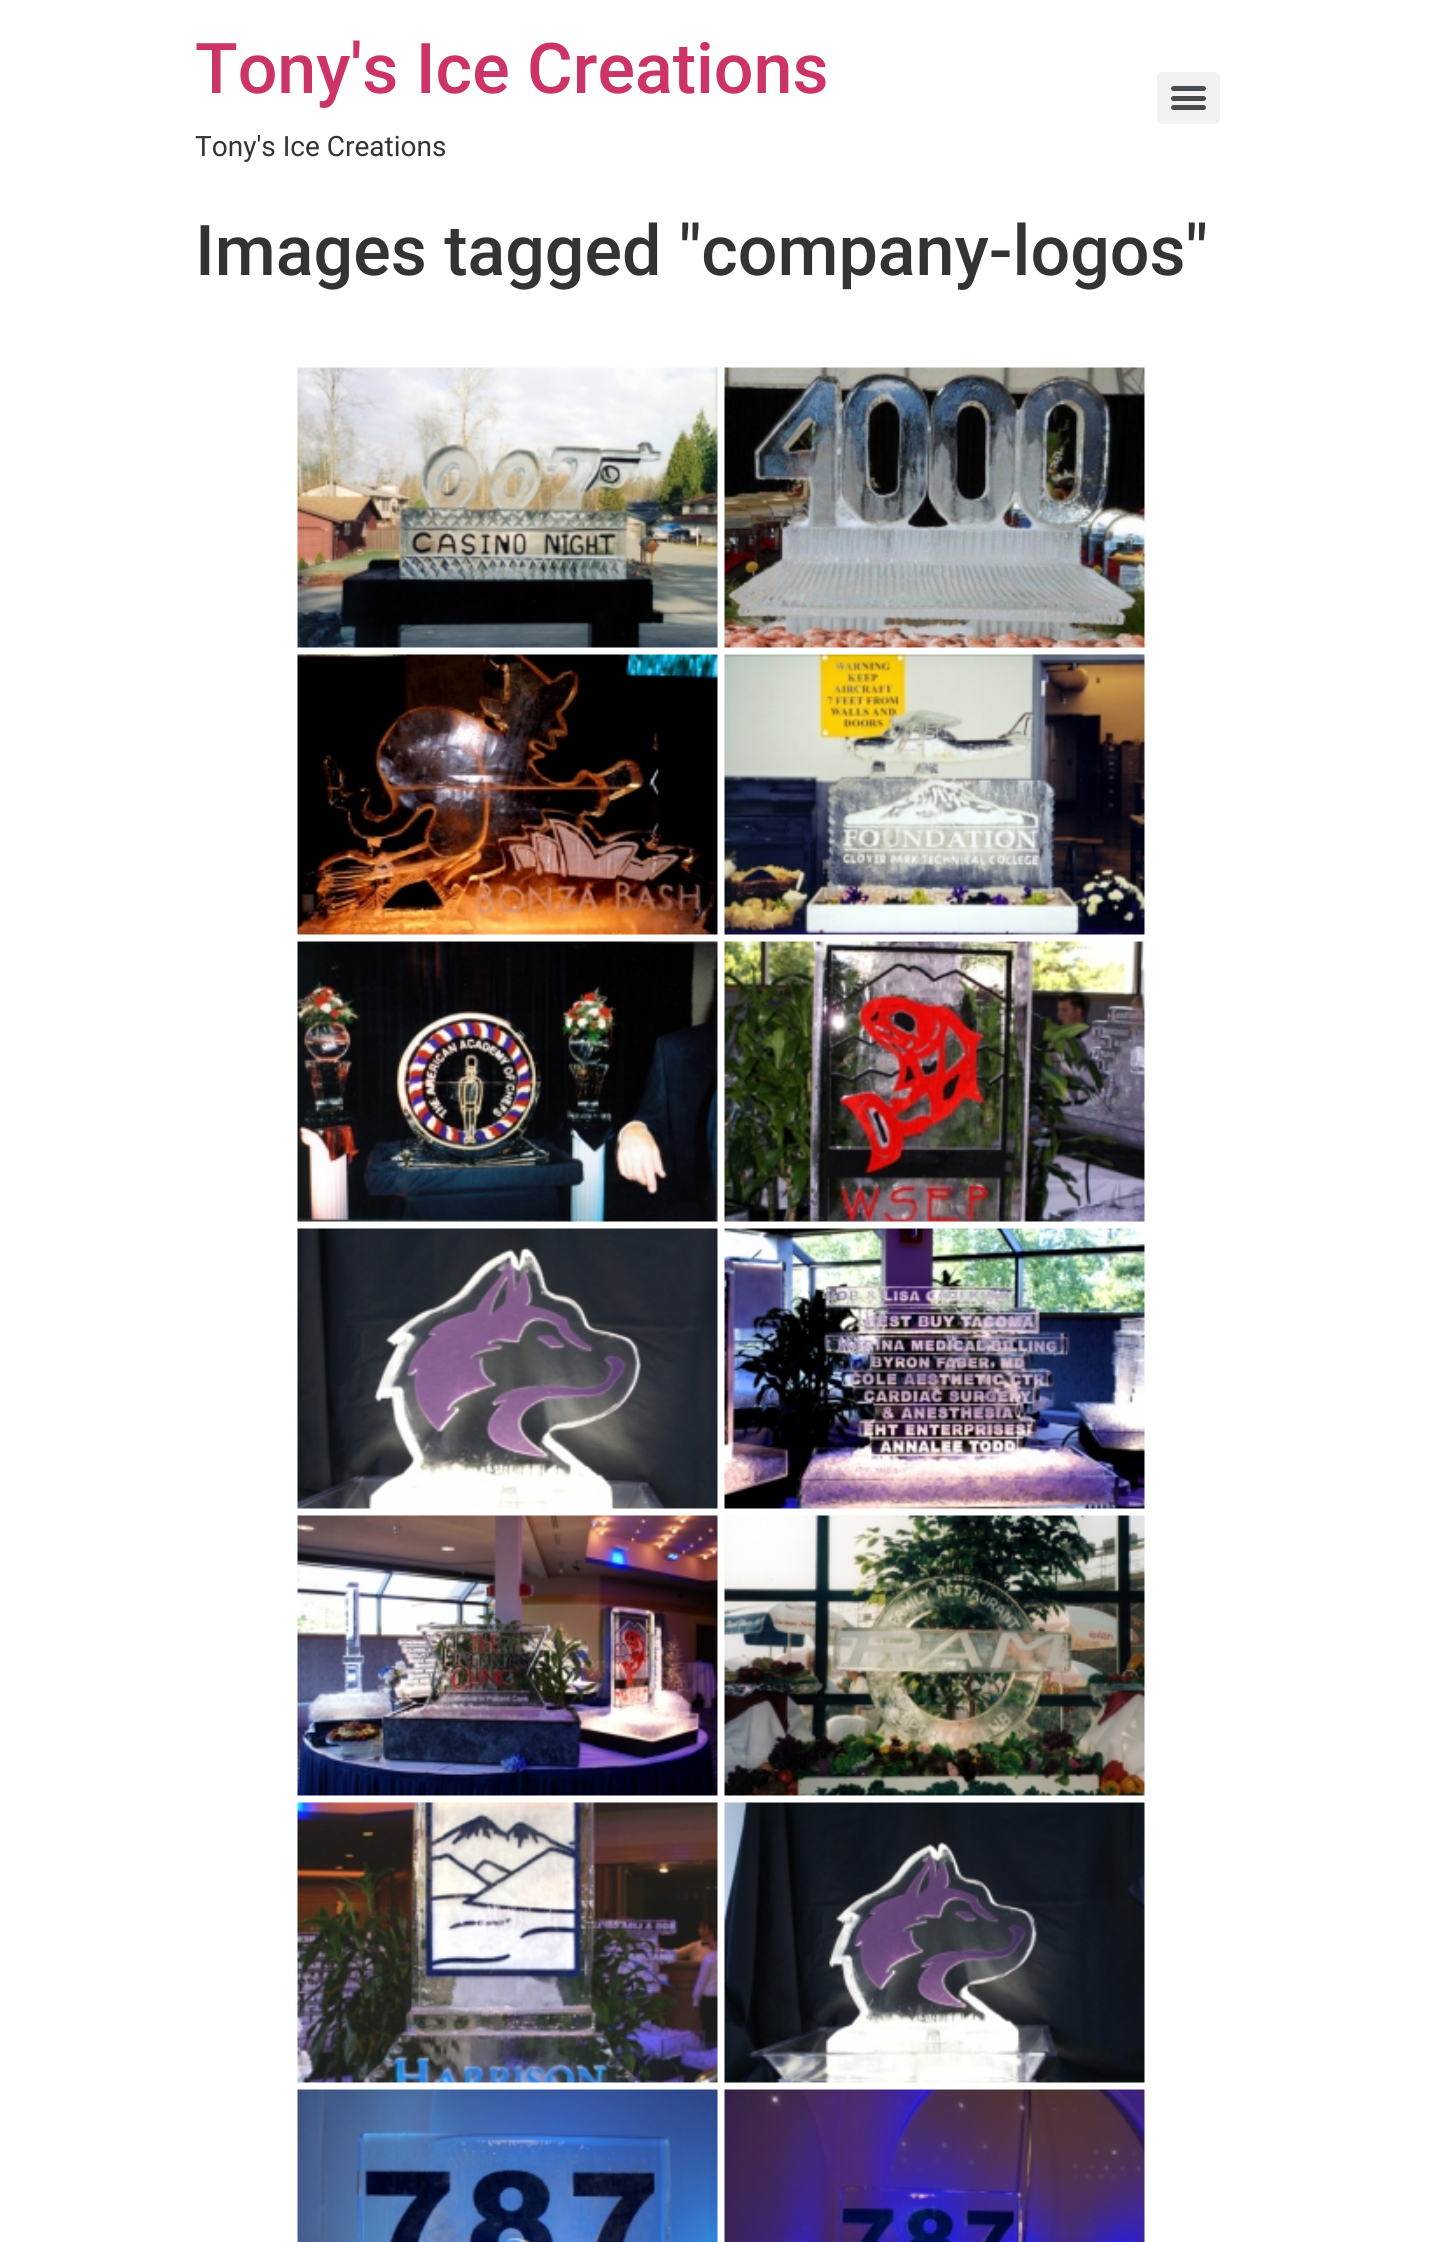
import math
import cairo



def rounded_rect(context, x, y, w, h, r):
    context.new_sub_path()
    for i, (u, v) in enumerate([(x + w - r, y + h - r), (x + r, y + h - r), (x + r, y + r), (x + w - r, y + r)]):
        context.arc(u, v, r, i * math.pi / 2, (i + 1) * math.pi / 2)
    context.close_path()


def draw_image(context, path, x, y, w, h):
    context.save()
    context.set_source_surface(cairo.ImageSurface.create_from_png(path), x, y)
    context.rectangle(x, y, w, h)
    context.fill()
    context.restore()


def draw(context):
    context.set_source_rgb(1, 1, 1)
    context.paint()
    context.set_source_rgb(242 / 255, 242 / 255, 242 / 255)
    rounded_rect(context, 1157, 72, 63, 52, 5)
    context.fill()
    context.set_source_rgb(73 / 255, 76 / 255, 79 / 255)
    rounded_rect(context, 1171, 96, 35, 5, 2.5)
    context.fill()
    rounded_rect(context, 1171, 86, 35, 5, 2.5)
    context.fill()
    rounded_rect(context, 1171, 105, 35, 5, 2.5)
    context.fill()
    draw_image(context, "images/1.png", 297, 367, 421, 281)
    draw_image(context, "images/2.png", 724, 367, 421, 281)
    draw_image(context, "images/3.png", 297, 654, 421, 281)
    draw_image(context, "images/4.png", 724, 654, 421, 281)
    draw_image(context, "images/5.png", 297, 941, 421, 281)
    draw_image(context, "images/6.png", 724, 941, 421, 281)
    draw_image(context, "images/7.png", 297, 1228, 421, 281)
    draw_image(context, "images/8.png", 724, 1228, 421, 281)
    draw_image(context, "images/9.png", 297, 1515, 421, 281)
    draw_image(context, "images/10.png", 724, 1515, 421, 281)
    draw_image(context, "images/11.png", 297, 1802, 421, 281)
    draw_image(context, "images/12.png", 724, 1802, 421, 281)
    draw_image(context, "images/13.png", 297, 2089, 421, 153)
    draw_image(context, "images/14.png", 724, 2089, 421, 153)
    context.select_font_face("Roboto Medium")
    context.set_font_size(70)
    context.set_source_rgb(204 / 255, 51 / 255, 102 / 255)
    context.move_to(195, 93)
    context.show_text("Tony's Ice Creations")
    context.select_font_face("Roboto")
    context.set_font_size(28)
    context.set_source_rgb(51 / 255, 51 / 255, 51 / 255)
    context.move_to(195, 156)
    context.show_text("Tony's Ice Creations")
    context.select_font_face("Roboto Medium")
    context.set_font_size(70)
    context.move_to(195, 275)
    context.show_text("Images tagged \"company-logos\"")


surface = cairo.ImageSurface(cairo.Format.RGB24, 1439, 2242)
context = cairo.Context(surface)
options = cairo.FontOptions()
options.set_hint_metrics(cairo.HintMetrics.OFF)
options.set_hint_style(cairo.HintStyle.NONE)
context.set_font_options(options)
context.set_miter_limit(4)
draw(context)
surface.write_to_png("out.png")
